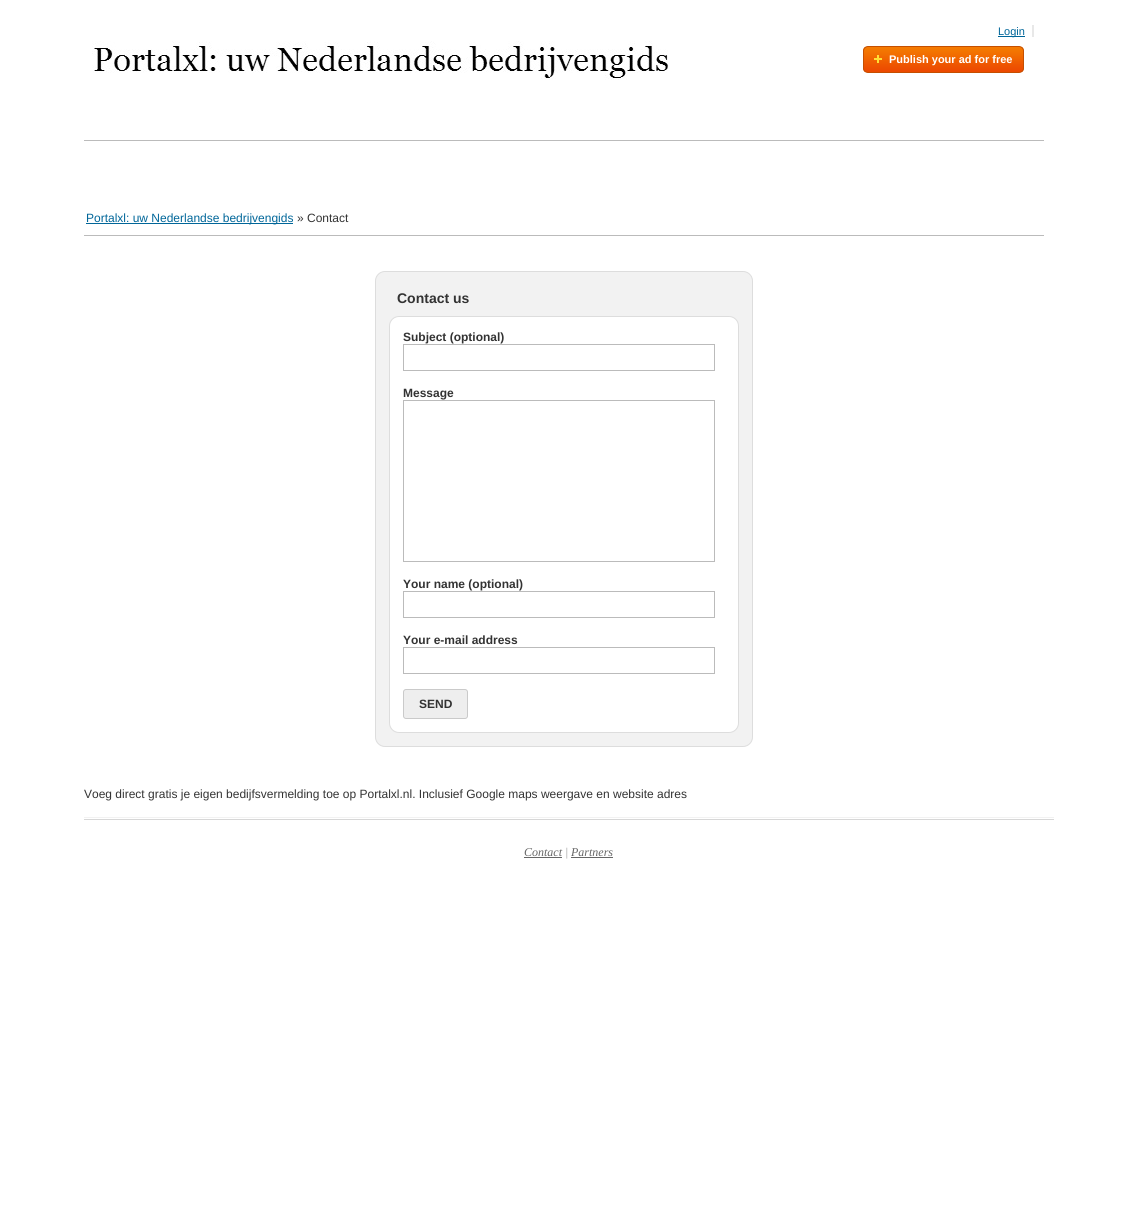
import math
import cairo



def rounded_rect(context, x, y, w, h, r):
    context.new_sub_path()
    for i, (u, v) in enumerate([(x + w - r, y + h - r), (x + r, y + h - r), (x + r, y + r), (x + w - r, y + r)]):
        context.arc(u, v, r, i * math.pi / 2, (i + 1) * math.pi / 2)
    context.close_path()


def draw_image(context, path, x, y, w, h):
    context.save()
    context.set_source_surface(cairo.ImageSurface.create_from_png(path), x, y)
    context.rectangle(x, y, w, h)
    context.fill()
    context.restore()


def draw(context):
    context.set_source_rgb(1, 1, 1)
    context.paint()
    context.set_source_rgb(187 / 255, 187 / 255, 187 / 255)
    context.rectangle(84, 140, 960, 1)
    context.fill()
    draw_image(context, "images/1.png", 92, 41, 577, 39)
    context.set_source_rgb(232 / 255, 232 / 255, 232 / 255)
    context.rectangle(1032, 25, 2, 12)
    context.fill()
    context.set_source_rgb(0, 102 / 255, 153 / 255)
    context.rectangle(998, 36, 27, 1)
    context.fill()
    draw_image(context, "images/2.png", 863, 47, 161, 25)
    rounded_rect(context, 863.5, 46.5, 160, 26, 4.5)
    context.set_source_rgb(197 / 255, 79 / 255, 0)
    context.set_line_width(1)
    context.stroke()
    draw_image(context, "images/3.png", 874, 55, 8, 8)
    context.set_source_rgb(187 / 255, 187 / 255, 187 / 255)
    context.rectangle(84, 235, 960, 1)
    context.fill()
    context.set_source_rgb(0, 102 / 255, 153 / 255)
    context.rectangle(86, 223, 207, 1)
    context.fill()
    context.set_source_rgb(242 / 255, 242 / 255, 242 / 255)
    rounded_rect(context, 375.5, 271.5, 377, 475, 9.5)
    context.fill_preserve()
    context.set_source_rgb(221 / 255, 221 / 255, 221 / 255)
    context.stroke()
    context.set_source_rgb(1, 1, 1)
    rounded_rect(context, 389.5, 316.5, 349, 416, 9.5)
    context.fill_preserve()
    context.set_source_rgb(221 / 255, 221 / 255, 221 / 255)
    context.stroke()
    context.rectangle(403.5, 344.5, 311, 26)
    context.set_source_rgb(187 / 255, 187 / 255, 187 / 255)
    context.stroke()
    context.rectangle(403.5, 400.5, 311, 161)
    context.stroke()
    context.rectangle(403.5, 591.5, 311, 26)
    context.stroke()
    context.rectangle(403.5, 647.5, 311, 26)
    context.stroke()
    context.set_source_rgb(238 / 255, 238 / 255, 238 / 255)
    rounded_rect(context, 403.5, 689.5, 64, 29, 2.5)
    context.fill_preserve()
    context.set_source_rgb(202 / 255, 202 / 255, 202 / 255)
    context.stroke()
    context.set_source_rgb(242 / 255, 242 / 255, 242 / 255)
    context.rectangle(84, 817, 970, 1)
    context.fill()
    context.set_source_rgb(215 / 255, 215 / 255, 215 / 255)
    context.rectangle(84, 819, 970, 1)
    context.fill()
    context.set_source_rgb(102 / 255, 102 / 255, 102 / 255)
    context.rectangle(524, 857, 38, 1)
    context.fill()
    context.rectangle(571, 857, 42, 1)
    context.fill()
    context.select_font_face("Liberation Sans")
    context.set_font_size(11)
    context.set_source_rgb(0, 102 / 255, 153 / 255)
    context.move_to(998, 35)
    context.show_text("Login")
    context.select_font_face("Liberation Sans", cairo.FontSlant.NORMAL, cairo.FontWeight.BOLD)
    context.set_source_rgb(1, 1, 1)
    context.move_to(889, 63)
    context.show_text("Publish your ad for free")
    context.select_font_face("Liberation Sans")
    context.set_font_size(12)
    context.set_source_rgb(0, 102 / 255, 153 / 255)
    context.move_to(86, 222)
    context.show_text("Portalxl: uw Nederlandse bedrijvengids")
    context.set_source_rgb(51 / 255, 51 / 255, 51 / 255)
    context.move_to(297, 222)
    context.show_text("» Contact")
    context.select_font_face("Liberation Sans", cairo.FontSlant.NORMAL, cairo.FontWeight.BOLD)
    context.set_font_size(14)
    context.move_to(397, 303)
    context.show_text("Contact us")
    context.set_font_size(12)
    context.move_to(403, 341)
    context.show_text("Subject (optional)")
    context.move_to(403, 397)
    context.show_text("Message")
    context.move_to(403, 588)
    context.show_text("Your name (optional)")
    context.move_to(403, 644)
    context.show_text("Your e-mail address")
    context.move_to(419, 708)
    context.show_text("SEND")
    context.select_font_face("Liberation Sans")
    context.move_to(84, 798)
    context.show_text("Voeg direct gratis je eigen bedijfsvermelding toe op Portalxl.nl. Inclusief Google maps weergave en website adres")
    context.select_font_face("Liberation Serif", cairo.FontSlant.ITALIC)
    context.set_source_rgb(102 / 255, 102 / 255, 102 / 255)
    context.move_to(524, 856)
    context.show_text("Contact")
    context.set_source_rgb(153 / 255, 153 / 255, 153 / 255)
    context.move_to(565, 856)
    context.show_text("|")
    context.set_source_rgb(102 / 255, 102 / 255, 102 / 255)
    context.move_to(571, 856)
    context.show_text("Partners")


surface = cairo.ImageSurface(cairo.Format.RGB24, 1137, 1217)
context = cairo.Context(surface)
options = cairo.FontOptions()
options.set_hint_metrics(cairo.HintMetrics.OFF)
options.set_hint_style(cairo.HintStyle.NONE)
context.set_font_options(options)
context.set_miter_limit(4)
draw(context)
surface.write_to_png("out.png")
